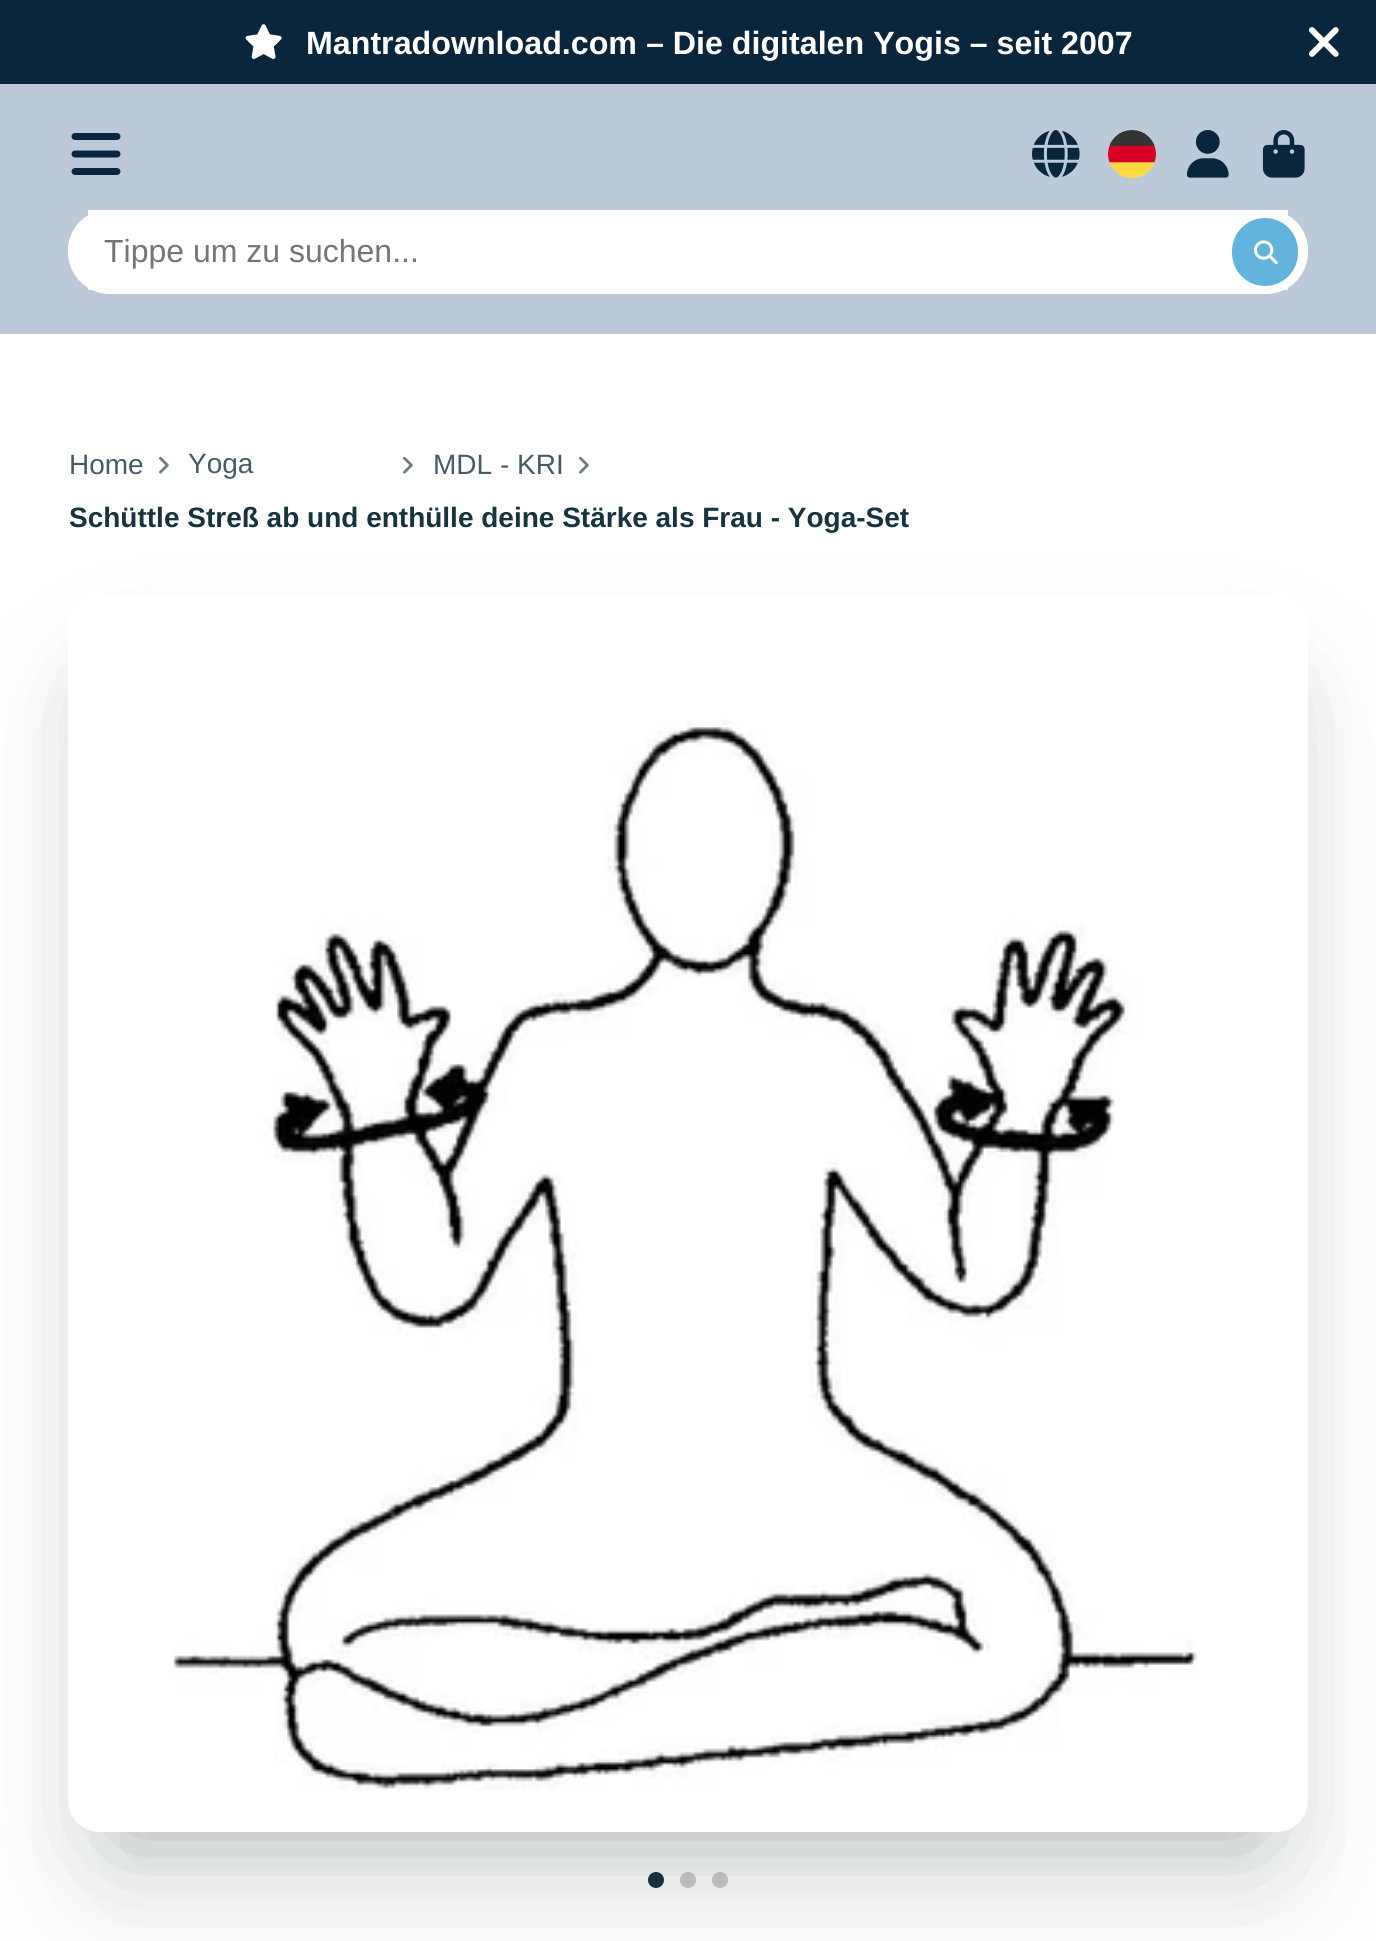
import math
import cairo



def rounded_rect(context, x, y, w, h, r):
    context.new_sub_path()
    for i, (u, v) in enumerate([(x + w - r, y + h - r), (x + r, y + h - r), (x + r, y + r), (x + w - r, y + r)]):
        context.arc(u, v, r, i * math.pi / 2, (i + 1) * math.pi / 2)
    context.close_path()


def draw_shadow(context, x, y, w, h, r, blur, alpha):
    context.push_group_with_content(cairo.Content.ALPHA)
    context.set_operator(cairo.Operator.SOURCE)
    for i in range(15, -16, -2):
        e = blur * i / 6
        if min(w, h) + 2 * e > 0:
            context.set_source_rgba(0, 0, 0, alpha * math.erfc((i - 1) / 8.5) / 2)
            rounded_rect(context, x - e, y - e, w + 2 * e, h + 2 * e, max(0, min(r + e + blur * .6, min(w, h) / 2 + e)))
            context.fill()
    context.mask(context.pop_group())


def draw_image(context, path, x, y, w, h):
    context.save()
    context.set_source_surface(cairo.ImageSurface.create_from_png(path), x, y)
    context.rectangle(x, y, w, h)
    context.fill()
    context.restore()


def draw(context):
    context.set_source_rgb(1, 1, 1)
    context.paint()
    context.set_source_rgb(10 / 255, 38 / 255, 60 / 255)
    context.rectangle(0, 0, 1376, 84)
    context.fill()
    draw_image(context, "images/1.png", 245, 24, 37, 35)
    draw_image(context, "images/2.png", 1308, 27, 31, 30)
    context.set_source_rgb(188 / 255, 201 / 255, 216 / 255)
    context.rectangle(0, 84, 1376, 250)
    context.fill()
    draw_image(context, "images/3.png", 71, 133, 50, 42)
    draw_image(context, "images/4.png", 1032, 130, 48, 48)
    draw_image(context, "images/5.png", 1108, 130, 48, 48)
    draw_image(context, "images/6.png", 1187, 130, 42, 48)
    draw_image(context, "images/7.png", 1262, 130, 43, 48)
    context.set_source_rgb(1, 1, 1)
    rounded_rect(context, 68, 210, 1240, 80, 40)
    context.fill()
    context.rectangle(88, 210, 1200, 80)
    context.fill()
    rounded_rect(context, 68, 210, 1240, 84, 42)
    context.fill()
    context.set_source_rgb(98 / 255, 180 / 255, 221 / 255)
    rounded_rect(context, 1232, 218, 66, 68, 33)
    context.fill()
    draw_image(context, "images/8.png", 1254, 240, 24, 24)
    context.set_source_rgb(22 / 255, 51 / 255, 64 / 255)
    context.arc(656, 1880, 8, 0, 2 * math.pi)
    context.fill()
    context.set_source_rgb(204 / 255, 204 / 255, 204 / 255)
    context.arc(688, 1880, 8, 0, 2 * math.pi)
    context.fill()
    context.arc(720, 1880, 8, 0, 2 * math.pi)
    context.fill()
    context.save()
    context.set_fill_rule(cairo.FillRule.EVEN_ODD)
    context.new_path()
    context.move_to(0, 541)
    context.line_to(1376, 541)
    context.line_to(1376, 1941)
    context.line_to(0, 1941)
    context.close_path()
    context.move_to(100, 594)
    context.line_to(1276, 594)
    context.curve_to(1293.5, 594, 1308, 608.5, 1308, 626)
    context.line_to(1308, 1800)
    context.curve_to(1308, 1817.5, 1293.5, 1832, 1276, 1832)
    context.line_to(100, 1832)
    context.curve_to(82.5, 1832, 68, 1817.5, 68, 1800)
    context.line_to(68, 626)
    context.curve_to(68, 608.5, 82.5, 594, 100, 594)
    context.close_path()
    context.clip()
    context.set_source_rgb(15 / 255, 36 / 255, 45 / 255)
    draw_shadow(context, 120, 700, 1136, 1132, 0, 52.5, 0.3)
    context.restore()
    draw_image(context, "images/10.png", 159, 456, 10, 18)
    draw_image(context, "images/10.png", 403, 456, 10, 18)
    draw_image(context, "images/10.png", 579, 456, 10, 18)
    context.save()
    context.set_fill_rule(cairo.FillRule.EVEN_ODD)
    context.new_path()
    context.move_to(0, 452)
    context.line_to(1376, 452)
    context.line_to(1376, 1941)
    context.line_to(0, 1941)
    context.close_path()
    context.move_to(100, 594)
    context.line_to(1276, 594)
    context.curve_to(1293.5, 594, 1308, 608.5, 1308, 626)
    context.line_to(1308, 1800)
    context.curve_to(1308, 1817.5, 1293.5, 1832, 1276, 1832)
    context.line_to(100, 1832)
    context.curve_to(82.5, 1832, 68, 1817.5, 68, 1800)
    context.line_to(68, 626)
    context.curve_to(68, 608.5, 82.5, 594, 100, 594)
    context.close_path()
    context.clip()
    context.set_source_rgb(15 / 255, 36 / 255, 45 / 255)
    draw_shadow(context, 104, 716, 1170, 1168, 0, 87.5, 0.1)
    context.restore()
    draw_image(context, "images/9.png", 173, 719, 1024, 1072)
    context.select_font_face("Liberation Sans", cairo.FontSlant.NORMAL, cairo.FontWeight.BOLD)
    context.set_font_size(32.2)
    context.set_source_rgb(1, 1, 1)
    context.move_to(306, 54)
    context.show_text("Mantradownload.com – Die digitalen Yogis – seit 2007")
    context.select_font_face("Liberation Sans")
    context.set_font_size(32)
    context.set_source_rgb(117 / 255, 117 / 255, 117 / 255)
    context.move_to(104, 262)
    context.show_text("Tippe um zu suchen...")
    context.set_font_size(28)
    context.set_source_rgb(69 / 255, 92 / 255, 102 / 255)
    context.move_to(69, 474)
    context.show_text("Home")
    context.move_to(188, 473)
    context.show_text("Yoga")
    context.move_to(433, 474)
    context.show_text("MDL - KRI")
    context.select_font_face("Liberation Sans", cairo.FontSlant.NORMAL, cairo.FontWeight.BOLD)
    context.set_source_rgb(22 / 255, 51 / 255, 64 / 255)
    context.move_to(69, 527)
    context.show_text("Schüttle Streß ab und enthülle deine Stärke als Frau - Yoga-Set")


surface = cairo.ImageSurface(cairo.Format.RGB24, 1376, 1941)
context = cairo.Context(surface)
options = cairo.FontOptions()
options.set_hint_metrics(cairo.HintMetrics.OFF)
options.set_hint_style(cairo.HintStyle.NONE)
context.set_font_options(options)
context.set_miter_limit(4)
draw(context)
surface.write_to_png("out.png")
